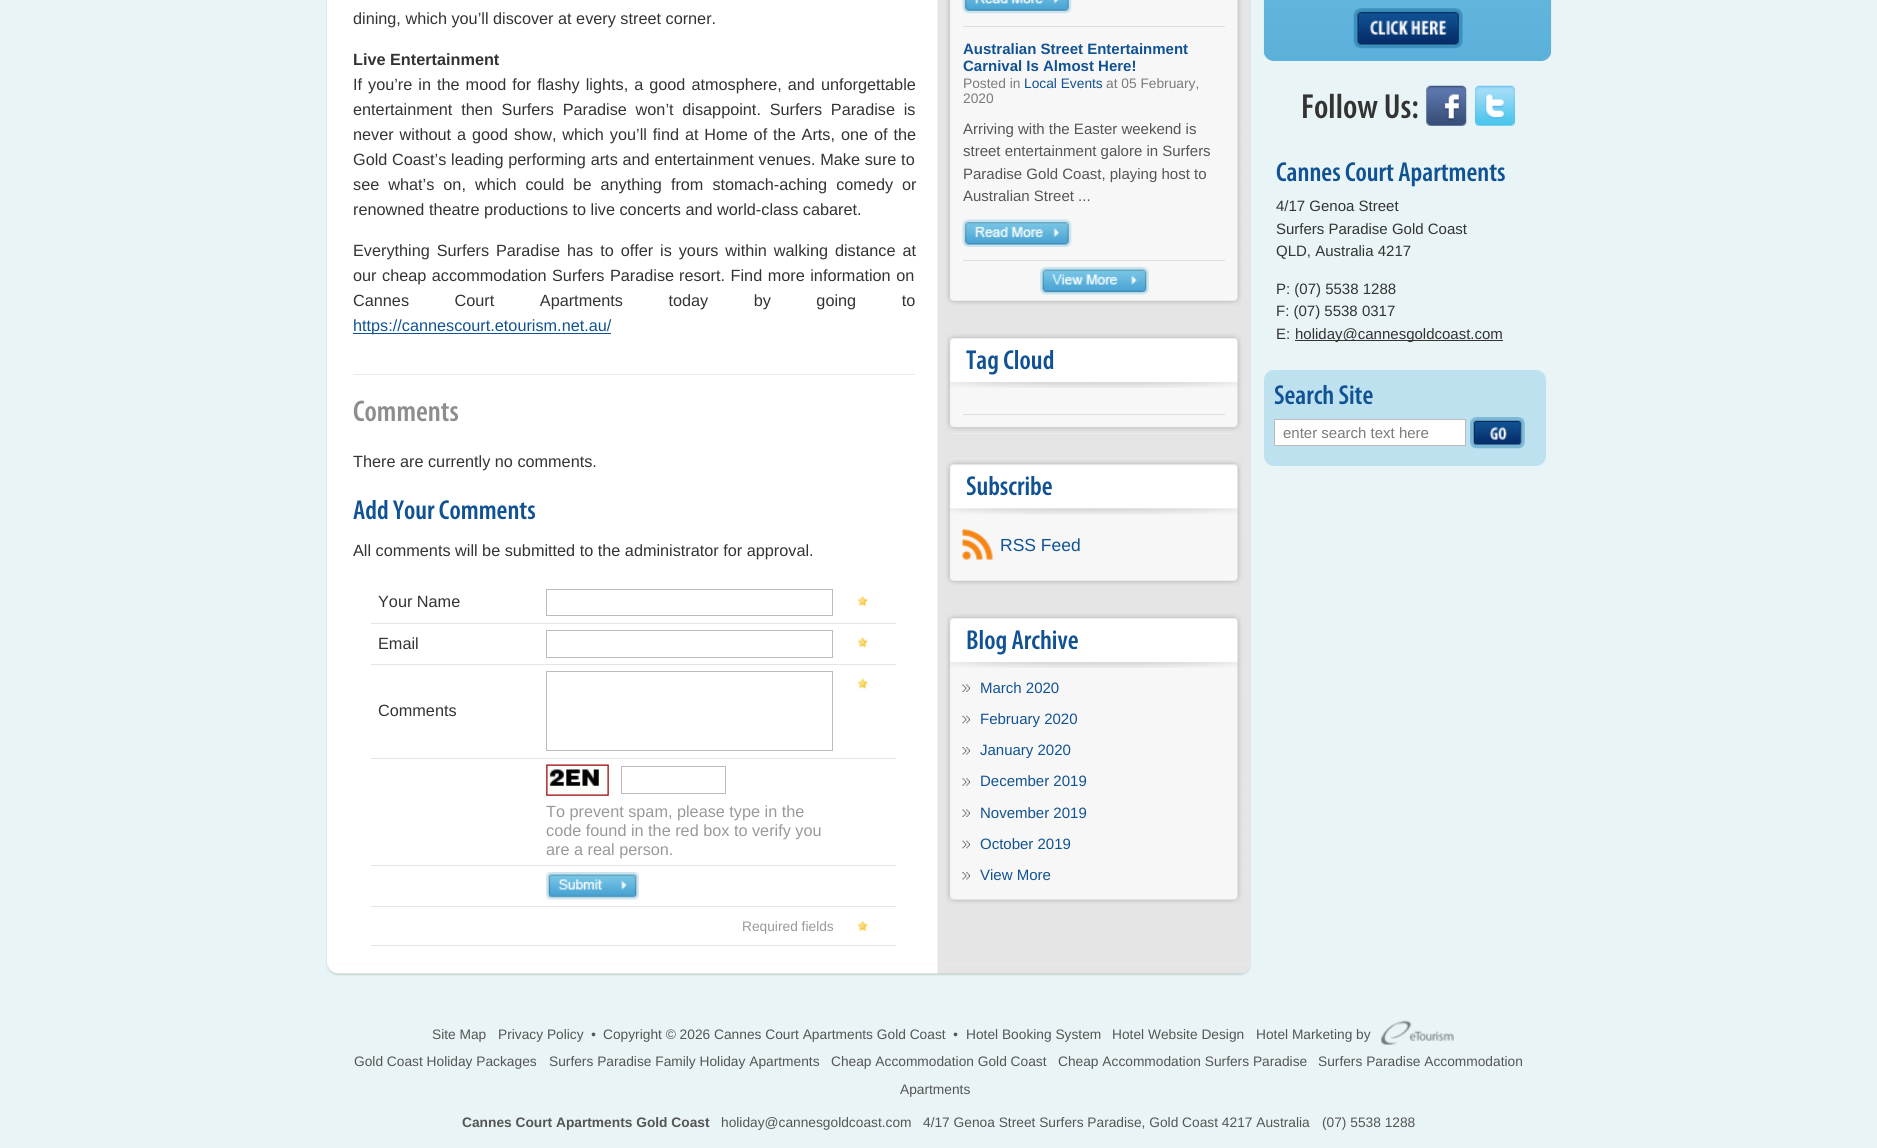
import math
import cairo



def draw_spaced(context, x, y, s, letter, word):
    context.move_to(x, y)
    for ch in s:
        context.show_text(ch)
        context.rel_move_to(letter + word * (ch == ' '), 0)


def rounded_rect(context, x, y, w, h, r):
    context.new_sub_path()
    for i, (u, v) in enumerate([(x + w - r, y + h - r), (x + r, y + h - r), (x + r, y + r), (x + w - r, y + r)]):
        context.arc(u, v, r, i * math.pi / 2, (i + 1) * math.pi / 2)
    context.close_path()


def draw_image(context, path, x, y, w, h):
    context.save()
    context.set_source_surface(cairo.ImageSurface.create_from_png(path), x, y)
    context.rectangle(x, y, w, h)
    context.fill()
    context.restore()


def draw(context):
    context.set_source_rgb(232 / 255, 244 / 255, 245 / 255)
    context.paint()
    draw_image(context, "images/1.png", 327, 0, 923, 965)
    context.set_source_rgb(220 / 255, 232 / 255, 233 / 255)
    context.rectangle(1250, 0, 1, 965)
    context.fill()
    context.rectangle(326, 0, 1, 965)
    context.fill()
    context.set_source_rgb(235 / 255, 235 / 255, 235 / 255)
    context.rectangle(353, 374, 562, 1)
    context.fill()
    context.set_source_rgb(16 / 255, 82 / 255, 147 / 255)
    context.rectangle(353, 333, 258, 1)
    context.fill()
    context.set_source_rgb(231 / 255, 228 / 255, 228 / 255)
    context.rectangle(371, 623, 525, 1)
    context.fill()
    draw_image(context, "images/2.png", 857, 595, 11, 11)
    context.rectangle(546.5, 589.5, 286, 26)
    context.set_source_rgb(187 / 255, 187 / 255, 187 / 255)
    context.set_line_width(1)
    context.stroke()
    context.set_source_rgb(231 / 255, 228 / 255, 228 / 255)
    context.rectangle(371, 664, 525, 1)
    context.fill()
    draw_image(context, "images/3.png", 857, 637, 11, 11)
    context.rectangle(546.5, 630.5, 286, 27)
    context.set_source_rgb(187 / 255, 187 / 255, 187 / 255)
    context.stroke()
    context.set_source_rgb(231 / 255, 228 / 255, 228 / 255)
    context.rectangle(371, 758, 525, 1)
    context.fill()
    draw_image(context, "images/4.png", 857, 678, 11, 11)
    context.rectangle(546.5, 671.5, 286, 79)
    context.set_source_rgb(187 / 255, 187 / 255, 187 / 255)
    context.stroke()
    draw_image(context, "images/5.png", 546, 764, 63, 32)
    context.rectangle(621.5, 766.5, 104, 27)
    context.stroke()
    context.set_source_rgb(231 / 255, 228 / 255, 228 / 255)
    context.rectangle(371, 865, 525, 1)
    context.fill()
    draw_image(context, "images/6.png", 546, 872, 93, 28)
    context.rectangle(371, 906, 525, 1)
    context.fill()
    draw_image(context, "images/2.png", 857, 920, 11, 11)
    context.rectangle(371, 945, 525, 1)
    context.fill()
    draw_image(context, "images/7.png", 946, 0, 296, 298)
    context.set_source_rgb(222 / 255, 222 / 255, 222 / 255)
    context.rectangle(963, 26, 262, 1)
    context.fill()
    draw_image(context, "images/8.png", 962, 0, 110, 14)
    context.rectangle(963, 260, 262, 1)
    context.fill()
    draw_image(context, "images/9.png", 962, 219, 110, 28)
    draw_image(context, "images/10.png", 946, 298, 296, 9)
    draw_image(context, "images/11.png", 1040, 267, 109, 28)
    draw_image(context, "images/12.png", 946, 388, 296, 46)
    draw_image(context, "images/13.png", 946, 332, 296, 56)
    context.rectangle(963, 414, 262, 1)
    context.fill()
    draw_image(context, "images/14.png", 946, 424, 296, 9)
    draw_image(context, "images/15.png", 946, 458, 296, 120)
    draw_image(context, "images/16.png", 946, 458, 295, 57)
    draw_image(context, "images/17.png", 962, 529, 31, 31)
    draw_image(context, "images/10.png", 946, 578, 296, 9)
    draw_image(context, "images/18.png", 946, 668, 296, 238)
    draw_image(context, "images/13.png", 946, 612, 296, 56)
    draw_image(context, "images/19.png", 962, 684, 8, 8)
    draw_image(context, "images/20.png", 962, 715, 8, 9)
    draw_image(context, "images/21.png", 962, 747, 8, 8)
    draw_image(context, "images/22.png", 962, 778, 8, 8)
    draw_image(context, "images/19.png", 962, 809, 8, 8)
    draw_image(context, "images/20.png", 962, 840, 8, 9)
    draw_image(context, "images/21.png", 962, 872, 8, 8)
    draw_image(context, "images/23.png", 946, 896, 296, 10)
    draw_image(context, "images/24.png", 326, 964, 925, 12)
    context.set_source_rgb(92 / 255, 177 / 255, 219 / 255)
    rounded_rect(context, 1264, -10, 287, 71, 10)
    context.fill()
    draw_image(context, "images/25.png", 1263, 0, 289, 61)
    draw_image(context, "images/26.png", 1353, 8, 110, 41)
    draw_image(context, "images/27.png", 1426, 85, 41, 41)
    draw_image(context, "images/28.png", 1475, 85, 40, 41)
    context.set_source_rgb(51 / 255, 51 / 255, 51 / 255)
    context.rectangle(1295, 340, 208, 1)
    context.fill()
    context.set_source_rgb(189 / 255, 225 / 255, 239 / 255)
    rounded_rect(context, 1264, 370, 282, 96, 10)
    context.fill()
    context.set_source_rgb(1, 1, 1)
    context.rectangle(1274.5, 419.5, 191, 26)
    context.fill_preserve()
    context.set_source_rgb(187 / 255, 187 / 255, 187 / 255)
    context.stroke()
    draw_image(context, "images/29.png", 1470, 417, 55, 32)
    draw_image(context, "images/30.png", 1381, 1020, 73, 25)
    context.select_font_face("Liberation Sans")
    context.set_font_size(16.25)
    context.set_source_rgb(51 / 255, 51 / 255, 51 / 255)
    context.move_to(353, 24)
    context.show_text("dining, which you’ll discover at every street corner.")
    context.select_font_face("Liberation Sans", cairo.FontSlant.NORMAL, cairo.FontWeight.BOLD)
    context.move_to(353, 65)
    context.show_text("Live Entertainment")
    context.select_font_face("Liberation Sans")
    draw_spaced(context, 353, 90, "If you’re in the mood for flashy lights, a good atmosphere, and unforgettable", 0, 1.5)
    draw_spaced(context, 353, 115, "entertainment then Surfers Paradise won’t disappoint. Surfers Paradise is", 0, 4.25)
    draw_spaced(context, 353, 140, "never without a good show, which you’ll find at Home of the Arts, one of the", 0, 1.4)
    draw_spaced(context, 353, 165, "Gold Coast’s leading performing arts and entertainment venues. Make sure to", 0, 0.25)
    draw_spaced(context, 353, 190, "see what’s on, which could be anything from stomach-aching comedy or", 0, 4.5)
    context.move_to(353, 215)
    context.show_text("renowned theatre productions to live concerts and world-class cabaret.")
    draw_spaced(context, 353, 256, "Everything Surfers Paradise has to offer is yours within walking distance at", 0, 2.4)
    context.move_to(353, 281)
    context.show_text("our")
    draw_spaced(context, 382, 281, "cheap accommodation Surfers Paradise", 0, 1)
    draw_spaced(context, 679, 281, "resort. Find more information on", 0, 1)
    draw_spaced(context, 353, 306, "Cannes Court Apartments today by going to", 0, 41)
    context.set_source_rgb(16 / 255, 82 / 255, 147 / 255)
    context.move_to(353, 331)
    context.show_text("https://cannescourt.etourism.net.au/")
    context.select_font_face("Myriad SemiBold")
    context.set_font_size(30)
    context.set_source_rgb(141 / 255, 141 / 255, 141 / 255)
    context.move_to(353, 421)
    context.show_text("Comments")
    context.select_font_face("Liberation Sans")
    context.set_font_size(16.25)
    context.set_source_rgb(51 / 255, 51 / 255, 51 / 255)
    context.move_to(353, 467)
    context.show_text("There are currently no comments.")
    context.select_font_face("Myriad SemiBold")
    context.set_font_size(27.5)
    context.set_source_rgb(16 / 255, 82 / 255, 147 / 255)
    context.move_to(353, 519)
    context.show_text("Add Your Comments")
    context.select_font_face("Liberation Sans")
    context.set_font_size(16.25)
    context.set_source_rgb(51 / 255, 51 / 255, 51 / 255)
    context.move_to(353, 556)
    context.show_text("All comments will be submitted to the administrator for approval.")
    context.move_to(378, 607)
    context.show_text("Your Name")
    context.move_to(378, 649)
    context.show_text("Email")
    context.move_to(378, 716)
    context.show_text("Comments")
    context.set_source_rgb(153 / 255, 153 / 255, 153 / 255)
    context.move_to(546, 817)
    context.show_text("To prevent spam, please type in the")
    context.move_to(546, 836)
    context.show_text("code found in the red box to verify you")
    context.move_to(546, 855)
    context.show_text("are a real person.")
    context.set_font_size(13.75)
    context.move_to(742, 931)
    context.show_text("Required fields")
    context.select_font_face("Liberation Sans", cairo.FontSlant.NORMAL, cairo.FontWeight.BOLD)
    context.set_font_size(15)
    context.set_source_rgb(16 / 255, 82 / 255, 147 / 255)
    context.move_to(963, 54)
    context.show_text("Australian Street Entertainment")
    context.move_to(963, 71)
    context.show_text("Carnival Is Almost Here!")
    context.select_font_face("Liberation Sans")
    context.set_font_size(13.75)
    context.set_source_rgb(123 / 255, 123 / 255, 123 / 255)
    context.move_to(963, 88)
    context.show_text("Posted in")
    context.set_source_rgb(16 / 255, 82 / 255, 147 / 255)
    context.move_to(1024, 88)
    context.show_text("Local Events")
    context.set_source_rgb(123 / 255, 123 / 255, 123 / 255)
    context.move_to(1106, 88)
    context.show_text("at 05 February,")
    context.move_to(963, 103)
    context.show_text("2020")
    context.set_font_size(15)
    context.set_source_rgb(85 / 255, 85 / 255, 85 / 255)
    context.move_to(963, 134)
    context.show_text("Arriving with the Easter weekend is")
    context.move_to(963, 156)
    context.show_text("street entertainment galore in Surfers")
    context.move_to(963, 179)
    context.show_text("Paradise Gold Coast, playing host to")
    context.move_to(963, 201)
    context.show_text("Australian Street ...")
    context.select_font_face("Myriad SemiBold")
    context.set_font_size(27.5)
    context.set_source_rgb(16 / 255, 82 / 255, 147 / 255)
    context.move_to(966, 369)
    context.show_text("Tag Cloud")
    context.move_to(966, 495)
    context.show_text("Subscribe")
    context.select_font_face("Liberation Sans")
    context.set_font_size(17.5)
    context.move_to(1000, 551)
    context.show_text("RSS Feed")
    context.select_font_face("Myriad SemiBold")
    context.set_font_size(27.5)
    context.move_to(966, 649)
    context.show_text("Blog Archive")
    context.select_font_face("Liberation Sans")
    context.set_font_size(15)
    context.move_to(980, 693)
    context.show_text("March 2020")
    context.move_to(980, 724)
    context.show_text("February 2020")
    context.move_to(980, 755)
    context.show_text("January 2020")
    context.move_to(980, 786)
    context.show_text("December 2019")
    context.move_to(980, 818)
    context.show_text("November 2019")
    context.move_to(980, 849)
    context.show_text("October 2019")
    context.move_to(980, 880)
    context.show_text("View More")
    context.select_font_face("Myriad SemiBold")
    context.set_font_size(35)
    context.set_source_rgb(51 / 255, 51 / 255, 51 / 255)
    context.move_to(1301, 118)
    context.show_text("Follow Us:")
    context.set_font_size(27.5)
    context.set_source_rgb(16 / 255, 82 / 255, 147 / 255)
    context.move_to(1276, 181)
    context.show_text("Cannes Court Apartments")
    context.select_font_face("Liberation Sans")
    context.set_font_size(15)
    context.set_source_rgb(51 / 255, 51 / 255, 51 / 255)
    context.move_to(1276, 211)
    context.show_text("4/17 Genoa Street")
    context.move_to(1276, 234)
    context.show_text("Surfers Paradise Gold Coast")
    context.move_to(1276, 256)
    context.show_text("QLD, Australia 4217")
    context.move_to(1276, 294)
    context.show_text("P: (07) 5538 1288")
    context.move_to(1276, 316)
    context.show_text("F: (07) 5538 0317")
    context.move_to(1276, 339)
    context.show_text("E:")
    context.move_to(1295, 339)
    context.show_text("holiday@cannesgoldcoast.com")
    context.select_font_face("Myriad SemiBold")
    context.set_font_size(27.5)
    context.set_source_rgb(16 / 255, 82 / 255, 147 / 255)
    context.move_to(1274, 404)
    context.show_text("Search Site")
    context.select_font_face("Liberation Sans")
    context.set_font_size(15)
    context.set_source_rgb(123 / 255, 123 / 255, 123 / 255)
    context.move_to(1283, 438)
    context.show_text("enter search text here")
    context.set_font_size(13.75)
    context.set_source_rgb(85 / 255, 85 / 255, 85 / 255)
    context.move_to(432, 1039)
    context.show_text("Site Map")
    context.move_to(498, 1039)
    context.show_text("Privacy Policy")
    context.select_font_face("Liberation Sans", cairo.FontSlant.ITALIC)
    context.move_to(591, 1039)
    context.show_text("•")
    context.select_font_face("Liberation Sans")
    context.move_to(603, 1039)
    context.show_text("Copyright © 2026 Cannes Court Apartments Gold Coast")
    context.select_font_face("Liberation Sans", cairo.FontSlant.ITALIC)
    context.move_to(953, 1039)
    context.show_text("•")
    context.select_font_face("Liberation Sans")
    context.move_to(966, 1039)
    context.show_text("Hotel Booking System")
    context.move_to(1112, 1039)
    context.show_text("Hotel Website Design")
    context.move_to(1256, 1039)
    context.show_text("Hotel Marketing by")
    context.move_to(354, 1066)
    context.show_text("Gold Coast Holiday Packages")
    context.move_to(549, 1066)
    context.show_text("Surfers Paradise Family Holiday Apartments")
    context.move_to(831, 1066)
    context.show_text("Cheap Accommodation Gold Coast")
    context.move_to(1058, 1066)
    context.show_text("Cheap Accommodation Surfers Paradise")
    context.move_to(1318, 1066)
    context.show_text("Surfers Paradise Accommodation")
    context.move_to(900, 1094)
    context.show_text("Apartments")
    context.select_font_face("Liberation Sans", cairo.FontSlant.NORMAL, cairo.FontWeight.BOLD)
    context.move_to(462, 1127)
    context.show_text("Cannes Court Apartments Gold Coast")
    context.select_font_face("Liberation Sans")
    context.move_to(721, 1127)
    context.show_text("holiday@cannesgoldcoast.com")
    context.move_to(923, 1127)
    context.show_text("4/17 Genoa Street Surfers Paradise, Gold Coast 4217 Australia")
    context.move_to(1322, 1127)
    context.show_text("(07) 5538 1288")


surface = cairo.ImageSurface(cairo.Format.RGB24, 1877, 1148)
context = cairo.Context(surface)
options = cairo.FontOptions()
options.set_hint_metrics(cairo.HintMetrics.OFF)
options.set_hint_style(cairo.HintStyle.NONE)
context.set_font_options(options)
context.set_miter_limit(4)
draw(context)
surface.write_to_png("out.png")
